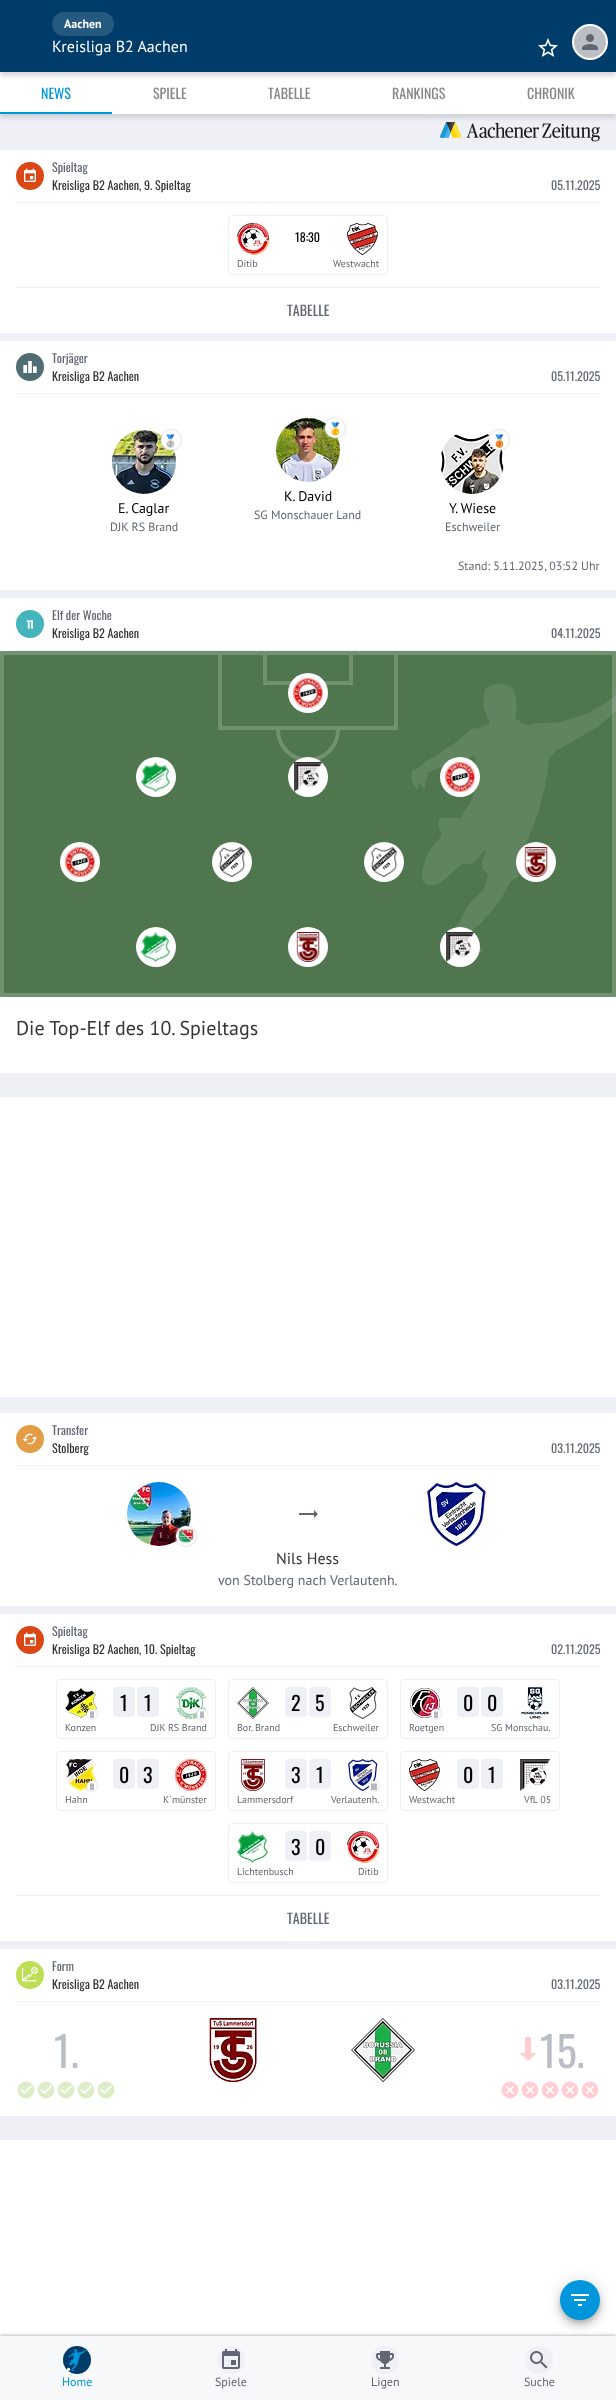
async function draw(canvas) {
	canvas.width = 616;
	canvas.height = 2400;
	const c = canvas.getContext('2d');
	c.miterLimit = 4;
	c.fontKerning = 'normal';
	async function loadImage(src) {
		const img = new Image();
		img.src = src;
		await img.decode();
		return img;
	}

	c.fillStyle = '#eef0f5';
	c.fillRect(0, 0, 616, 2400);
	c.drawImage(await loadImage('img3.png'), 440, 122, 160, 20);
	c.fillStyle = '#bcbec699';
	c.filter = 'blur(2px)';
	c.beginPath();
	c.rect(0, 76, 616, 42);
	c.fill();
	c.filter = 'none';
	c.fillStyle = '#fff';
	c.fillRect(0, 72, 616, 42);
	c.fillStyle = '#bcbec699';
	c.filter = 'blur(2px)';
	c.beginPath();
	c.rect(0, 4, 616, 72);
	c.fill();
	c.filter = 'none';
	c.fillStyle = '#003c69';
	c.fillRect(0, 0, 616, 72);
	c.fillStyle = '#265980';
	c.beginPath();
	c.roundRect(52, 12, 62, 24, 12);
	c.fill();
	c.font = 'bold 12px PT Sans';
	c.fillStyle = '#fff';
	c.fillText('Aachen', 64, 28);
	c.font = '16px PT Sans';
	c.fillText('Kreisliga B2 Aachen', 52, 52);
	c.drawImage(await loadImage('img1.png'), 538, 38, 20, 19);
	c.fillStyle = '#bcbec6';
	c.beginPath();
	c.arc(590, 42, 17, 0, 2 * Math.PI);
	c.fill();
	c.strokeStyle = '#fff';
	c.lineWidth = 2;
	c.stroke();
	c.drawImage(await loadImage('img2.png'), 582, 34, 16, 16);
	c.font = '14px Oswald';
	c.fillStyle = '#0096db';
	c.fillText('NEWS', 41, 99);
	c.fillStyle = '#858686';
	for (const [text, x, y] of [
		['SPIELE', 153, 99],
		['TABELLE', 268, 99],
		['RANKINGS', 392, 99],
		['CHRONIK', 527, 99],
	]) {
		c.fillText(text, x, y);
	}
	c.fillStyle = '#0096db';
	c.fillRect(0, 112, 112, 2);
	c.fillStyle = '#fff';
	c.fillRect(0, 150, 616, 183);
	c.fillStyle = '#db4816';
	c.beginPath();
	c.arc(30, 176, 14, 0, 2 * Math.PI);
	c.fill();
	c.drawImage(await loadImage('img4.png'), 24, 168, 12, 14);
	c.font = '12px Oswald';
	c.fillStyle = '#616672';
	c.fillText('Spieltag', 52, 172);
	c.fillStyle = '#343536';
	c.fillText('Kreisliga B2 Aachen, 9. Spieltag', 52, 190);
	c.fillStyle = '#616672';
	c.fillText('05.11.2025', 551, 190);
	c.fillStyle = '#eef0f5';
	c.fillRect(16, 202, 584, 1);
	c.beginPath();
	c.roundRect(228.5, 215.5, 159, 59, 3.5);
	c.strokeStyle = '#eef0f5';
	c.lineWidth = 1;
	c.stroke();
	c.drawImage(await loadImage('img5.png'), 237, 223, 32, 32);
	c.fillStyle = '#000';
	c.fillText('18:30', 295, 242);
	c.drawImage(await loadImage('img6.png'), 347, 223, 31, 32);
	c.font = '10px PT Sans';
	c.fillStyle = '#616672';
	c.fillText('Ditib', 237, 267);
	c.fillText('Westwacht', 333, 267);
	c.fillStyle = '#eef0f5';
	c.fillRect(16, 287, 584, 1);
	c.font = '14px Oswald';
	c.fillStyle = '#616672';
	c.fillText('TABELLE', 287, 316);
	c.fillStyle = '#fff';
	c.fillRect(0, 341, 616, 249);
	c.fillStyle = '#516d73';
	c.beginPath();
	c.arc(30, 367, 14, 0, 2 * Math.PI);
	c.fill();
	c.drawImage(await loadImage('img7.png'), 23, 361, 14, 12);
	c.font = '12px Oswald';
	c.fillStyle = '#616672';
	c.fillText('Torjäger', 52, 363);
	c.fillStyle = '#343536';
	c.fillText('Kreisliga B2 Aachen', 52, 381);
	c.fillStyle = '#616672';
	c.fillText('05.11.2025', 551, 381);
	c.fillStyle = '#eef0f5';
	c.fillRect(16, 393, 584, 1);
	c.drawImage(await loadImage('img8.png'), 112, 430, 64, 64);
	c.fillStyle = '#bcbec6';
	c.filter = 'blur(1px)';
	c.beginPath();
	c.roundRect(161, 430, 20, 20, 10);
	c.fill();
	c.filter = 'none';
	c.fillStyle = '#fff';
	c.beginPath();
	c.arc(171, 440, 10, 0, 2 * Math.PI);
	c.fill();
	c.font = '12px Noto Color Emoji';
	c.fillStyle = '#616672';
	c.fillText('🥈', 163, 445);
	c.font = '14px PT Sans';
	c.fillStyle = '#000';
	c.fillText('E. Caglar', 118, 513);
	c.font = '12px PT Sans';
	c.fillStyle = '#616672';
	c.fillText('DJK RS Brand', 110, 531);
	c.drawImage(await loadImage('img9.png'), 276, 418, 64, 64);
	c.fillStyle = '#bcbec6';
	c.filter = 'blur(1px)';
	c.beginPath();
	c.roundRect(325, 418, 20, 20, 10);
	c.fill();
	c.filter = 'none';
	c.fillStyle = '#fff';
	c.beginPath();
	c.arc(335, 428, 10, 0, 2 * Math.PI);
	c.fill();
	c.font = '12px Noto Color Emoji';
	c.fillStyle = '#616672';
	c.fillText('🥇', 328, 433);
	c.font = '14px PT Sans';
	c.fillStyle = '#000';
	c.fillText('K. David', 284, 501);
	c.font = '12px PT Sans';
	c.fillStyle = '#616672';
	c.fillText('SG Monschauer Land', 254, 519);
	c.drawImage(await loadImage('img10.png'), 441, 434, 63, 60);
	c.fillStyle = '#bcbec6';
	c.filter = 'blur(1px)';
	c.beginPath();
	c.roundRect(489, 430, 20, 20, 10);
	c.fill();
	c.filter = 'none';
	c.fillStyle = '#fff';
	c.beginPath();
	c.arc(499, 440, 10, 0, 2 * Math.PI);
	c.fill();
	c.font = '12px Noto Color Emoji';
	c.fillStyle = '#616672';
	c.fillText('🥉', 492, 445);
	c.font = '14px PT Sans';
	c.fillStyle = '#000';
	c.fillText('Y. Wiese', 449, 513);
	c.font = '12px PT Sans';
	c.fillStyle = '#616672';
	c.fillText('Eschweiler', 445, 531);
	c.fillText('Stand: 5.11.2025, 03:52 Uhr', 458, 570);
	c.fillStyle = '#fff';
	c.fillRect(0, 598, 616, 475);
	c.fillStyle = '#44b5bc';
	c.beginPath();
	c.arc(30, 624, 14, 0, 2 * Math.PI);
	c.fill();
	c.drawImage(await loadImage('img11.png'), 26, 620, 7, 9);
	c.font = '12px Oswald';
	c.fillStyle = '#616672';
	c.fillText('Elf der Woche', 52, 620);
	c.fillStyle = '#343536';
	c.fillText('Kreisliga B2 Aachen', 52, 638);
	c.fillStyle = '#616672';
	c.fillText('04.11.2025', 551, 638);
	c.fillStyle = '#eef0f5';
	c.fillRect(16, 650, 584, 1);
	c.fillStyle = '#4f764e';
	c.beginPath();
	c.rect(2, 653, 612, 342);
	c.fill();
	c.strokeStyle = '#729171';
	c.lineWidth = 4;
	c.stroke();
	c.beginPath();
	c.moveTo(265, 655);
	c.lineTo(265, 683);
	c.lineTo(351, 683);
	c.lineTo(351, 655);
	c.moveTo(278, 730);
	c.bezierCurveTo(278, 746.5, 291.5, 760, 308, 760);
	c.bezierCurveTo(324.5, 760, 338, 746.5, 338, 730);
	c.stroke();
	c.beginPath();
	c.moveTo(220, 655);
	c.lineTo(220, 728);
	c.lineTo(396, 728);
	c.lineTo(396, 655);
	c.stroke();
	c.fillStyle = '#fff';
	c.beginPath();
	c.arc(308, 693, 20, 0, 2 * Math.PI);
	c.fill();
	c.drawImage(await loadImage('img12.png'), 293, 678, 30, 30);
	c.beginPath();
	c.arc(156, 777, 20, 0, 2 * Math.PI);
	c.fill();
	c.drawImage(await loadImage('img13.png'), 141, 762, 30, 30);
	c.beginPath();
	c.arc(308, 777, 20, 0, 2 * Math.PI);
	c.fill();
	c.drawImage(await loadImage('img14.png'), 294, 762, 29, 30);
	c.drawImage(await loadImage('img20.png'), 411, 684, 205, 269);
	c.beginPath();
	c.arc(460, 777, 20, 0, 2 * Math.PI);
	c.fill();
	c.drawImage(await loadImage('img15.png'), 445, 762, 30, 30);
	c.beginPath();
	c.arc(80, 862, 20, 0, 2 * Math.PI);
	c.fill();
	c.drawImage(await loadImage('img12.png'), 65, 847, 30, 30);
	c.beginPath();
	c.arc(232, 862, 20, 0, 2 * Math.PI);
	c.fill();
	c.drawImage(await loadImage('img16.png'), 218, 847, 28, 30);
	c.beginPath();
	c.arc(384, 862, 20, 0, 2 * Math.PI);
	c.fill();
	c.drawImage(await loadImage('img17.png'), 370, 847, 28, 30);
	c.beginPath();
	c.arc(536, 862, 20, 0, 2 * Math.PI);
	c.fill();
	c.drawImage(await loadImage('img18.png'), 524, 847, 24, 30);
	c.beginPath();
	c.arc(156, 947, 20, 0, 2 * Math.PI);
	c.fill();
	c.drawImage(await loadImage('img13.png'), 141, 932, 30, 30);
	c.beginPath();
	c.arc(308, 947, 20, 0, 2 * Math.PI);
	c.fill();
	c.drawImage(await loadImage('img18.png'), 296, 932, 24, 30);
	c.beginPath();
	c.arc(460, 947, 20, 0, 2 * Math.PI);
	c.fill();
	c.drawImage(await loadImage('img19.png'), 446, 932, 29, 30);
	c.font = '20px PT Sans';
	c.fillStyle = '#343536';
	c.fillText('Die Top-Elf des 10. Spieltags', 16, 1035);
	c.fillStyle = '#fff';
	c.fillRect(0, 1097, 616, 300);
	c.fillRect(0, 1413, 616, 193);
	c.fillStyle = '#e49c45';
	c.beginPath();
	c.arc(30, 1439, 14, 0, 2 * Math.PI);
	c.fill();
	c.drawImage(await loadImage('img21.png'), 22, 1433, 16, 12);
	c.font = '12px Oswald';
	c.fillStyle = '#616672';
	c.fillText('Transfer', 52, 1435);
	c.fillStyle = '#343536';
	c.fillText('Stolberg', 52, 1453);
	c.fillStyle = '#616672';
	c.fillText('03.11.2025', 551, 1453);
	c.fillStyle = '#eef0f5';
	c.fillRect(16, 1465, 584, 1);
	c.drawImage(await loadImage('img22.png'), 127, 1482, 64, 64);
	c.fillStyle = '#bcbec6';
	c.filter = 'blur(1px)';
	c.beginPath();
	c.roundRect(176, 1526, 20, 20, 10);
	c.fill();
	c.filter = 'none';
	c.fillStyle = '#fff';
	c.beginPath();
	c.arc(186, 1536, 10, 0, 2 * Math.PI);
	c.fill();
	c.drawImage(await loadImage('img23.png'), 178, 1529, 16, 14);
	c.drawImage(await loadImage('img24.png'), 299, 1510, 19, 8);
	c.drawImage(await loadImage('img25.png'), 427, 1482, 59, 64);
	c.font = '16px PT Sans';
	c.fillStyle = '#343536';
	c.fillText('Nils Hess', 276, 1564);
	c.font = '14px PT Sans';
	c.fillStyle = '#616672';
	c.fillText('von Stolberg nach', 218, 1585);
	c.fillText('Verlautenh.', 330, 1585);
	c.fillStyle = '#fff';
	c.fillRect(0, 1614, 616, 327);
	c.fillStyle = '#db4816';
	c.beginPath();
	c.arc(30, 1640, 14, 0, 2 * Math.PI);
	c.fill();
	c.drawImage(await loadImage('img4.png'), 24, 1632, 12, 14);
	c.font = '12px Oswald';
	c.fillStyle = '#616672';
	c.fillText('Spieltag', 52, 1636);
	c.fillStyle = '#343536';
	c.fillText('Kreisliga B2 Aachen, 10. Spieltag', 52, 1654);
	c.fillStyle = '#616672';
	c.fillText('02.11.2025', 551, 1654);
	c.fillStyle = '#eef0f5';
	c.fillRect(16, 1666, 584, 1);
	c.beginPath();
	c.roundRect(56.5, 1679.5, 159, 59, 3.5);
	c.strokeStyle = '#eef0f5';
	c.lineWidth = 1;
	c.stroke();
	c.beginPath();
	c.roundRect(113, 1687, 22, 30, 4);
	c.fill();
	c.font = '20px Oswald';
	c.fillStyle = '#000';
	c.fillText('1', 120, 1711);
	c.fillStyle = '#eef0f5';
	c.beginPath();
	c.roundRect(137, 1687, 22, 30, 4);
	c.fill();
	c.fillStyle = '#000';
	c.fillText('1', 144, 1711);
	c.drawImage(await loadImage('img26.png'), 65, 1688, 32, 31);
	c.fillStyle = '#bcbec6';
	c.filter = 'blur(1px)';
	c.beginPath();
	c.roundRect(87, 1709, 10, 10, 5);
	c.fill();
	c.filter = 'none';
	c.fillStyle = '#fff';
	c.beginPath();
	c.arc(92, 1714, 5, 0, 2 * Math.PI);
	c.fill();
	c.font = '8px Oswald';
	c.fillStyle = '#616672';
	c.fillText('II', 90, 1718);
	c.drawImage(await loadImage('img27.png'), 175, 1687, 32, 32);
	c.fillStyle = '#bcbec6';
	c.filter = 'blur(1px)';
	c.beginPath();
	c.roundRect(197, 1709, 10, 10, 5);
	c.fill();
	c.filter = 'none';
	c.fillStyle = '#fff';
	c.beginPath();
	c.arc(202, 1714, 5, 0, 2 * Math.PI);
	c.fill();
	c.fillStyle = '#616672';
	c.fillText('II', 200, 1718);
	c.font = '10px PT Sans';
	c.fillText('Konzen', 65, 1731);
	c.fillText('DJK RS Brand', 150, 1731);
	c.beginPath();
	c.roundRect(228.5, 1679.5, 159, 59, 3.5);
	c.stroke();
	c.drawImage(await loadImage('img28.png'), 237, 1687, 32, 32);
	c.fillStyle = '#eef0f5';
	c.beginPath();
	c.roundRect(285, 1687, 22, 30, 4);
	c.fill();
	c.font = '20px Oswald';
	c.fillStyle = '#000';
	c.fillText('2', 291, 1711);
	c.fillStyle = '#eef0f5';
	c.beginPath();
	c.roundRect(309, 1687, 22, 30, 4);
	c.fill();
	c.fillStyle = '#000';
	c.fillText('5', 315, 1711);
	c.drawImage(await loadImage('img29.png'), 349, 1687, 28, 32);
	c.font = '10px PT Sans';
	c.fillStyle = '#616672';
	c.fillText('Bor. Brand', 237, 1731);
	c.fillText('Eschweiler', 333, 1731);
	c.beginPath();
	c.roundRect(400.5, 1679.5, 159, 59, 3.5);
	c.stroke();
	c.fillStyle = '#eef0f5';
	c.beginPath();
	c.roundRect(457, 1687, 22, 30, 4);
	c.fill();
	c.font = '20px Oswald';
	c.fillStyle = '#000';
	c.fillText('0', 463, 1711);
	c.fillStyle = '#eef0f5';
	c.beginPath();
	c.roundRect(481, 1687, 22, 30, 4);
	c.fill();
	c.fillStyle = '#000';
	c.fillText('0', 487, 1711);
	c.drawImage(await loadImage('img30.png'), 521, 1687, 28, 32);
	c.drawImage(await loadImage('img31.png'), 409, 1687, 31, 31);
	c.fillStyle = '#bcbec6';
	c.filter = 'blur(1px)';
	c.beginPath();
	c.roundRect(431, 1709, 10, 10, 5);
	c.fill();
	c.filter = 'none';
	c.fillStyle = '#fff';
	c.beginPath();
	c.arc(436, 1714, 5, 0, 2 * Math.PI);
	c.fill();
	c.font = '8px Oswald';
	c.fillStyle = '#616672';
	c.fillText('II', 434, 1718);
	c.font = '10px PT Sans';
	c.fillText('Roetgen', 409, 1731);
	c.fillText('SG Monschau.', 491, 1731);
	c.beginPath();
	c.roundRect(56.5, 1751.5, 159, 59, 3.5);
	c.stroke();
	c.fillStyle = '#eef0f5';
	c.beginPath();
	c.roundRect(113, 1759, 22, 30, 4);
	c.fill();
	c.font = '20px Oswald';
	c.fillStyle = '#000';
	c.fillText('0', 119, 1783);
	c.fillStyle = '#eef0f5';
	c.beginPath();
	c.roundRect(137, 1759, 22, 30, 4);
	c.fill();
	c.fillStyle = '#000';
	c.fillText('3', 143, 1783);
	c.drawImage(await loadImage('img32.png'), 175, 1759, 32, 32);
	c.drawImage(await loadImage('img33.png'), 66, 1759, 30, 32);
	c.fillStyle = '#bcbec6';
	c.filter = 'blur(1px)';
	c.beginPath();
	c.roundRect(87, 1781, 10, 10, 5);
	c.fill();
	c.filter = 'none';
	c.fillStyle = '#fff';
	c.beginPath();
	c.arc(92, 1786, 5, 0, 2 * Math.PI);
	c.fill();
	c.font = '8px Oswald';
	c.fillStyle = '#616672';
	c.fillText('II', 90, 1790);
	c.font = '10px PT Sans';
	c.fillText('Hahn', 65, 1803);
	c.fillText('K`münster', 163, 1803);
	c.beginPath();
	c.roundRect(228.5, 1751.5, 159, 59, 3.5);
	c.stroke();
	c.drawImage(await loadImage('img34.png'), 241, 1759, 24, 32);
	c.fillStyle = '#eef0f5';
	c.beginPath();
	c.roundRect(285, 1759, 22, 30, 4);
	c.fill();
	c.font = '20px Oswald';
	c.fillStyle = '#000';
	c.fillText('3', 291, 1783);
	c.fillStyle = '#eef0f5';
	c.beginPath();
	c.roundRect(309, 1759, 22, 30, 4);
	c.fill();
	c.fillStyle = '#000';
	c.fillText('1', 316, 1783);
	c.drawImage(await loadImage('img35.png'), 348, 1759, 30, 32);
	c.fillStyle = '#bcbec6';
	c.filter = 'blur(1px)';
	c.beginPath();
	c.roundRect(369, 1781, 10, 10, 5);
	c.fill();
	c.filter = 'none';
	c.fillStyle = '#fff';
	c.beginPath();
	c.arc(374, 1786, 5, 0, 2 * Math.PI);
	c.fill();
	c.font = '8px Oswald';
	c.fillStyle = '#616672';
	c.fillText('III', 371, 1790);
	c.font = '10px PT Sans';
	c.fillText('Lammersdorf', 237, 1803);
	c.fillText('Verlautenh.', 331, 1803);
	c.beginPath();
	c.roundRect(400.5, 1751.5, 159, 59, 3.5);
	c.stroke();
	c.drawImage(await loadImage('img6.png'), 409, 1759, 31, 32);
	c.fillStyle = '#eef0f5';
	c.beginPath();
	c.roundRect(457, 1759, 22, 30, 4);
	c.fill();
	c.font = '20px Oswald';
	c.fillStyle = '#000';
	c.fillText('0', 463, 1783);
	c.fillStyle = '#eef0f5';
	c.beginPath();
	c.roundRect(481, 1759, 22, 30, 4);
	c.fill();
	c.fillStyle = '#000';
	c.fillText('1', 488, 1783);
	c.drawImage(await loadImage('img36.png'), 520, 1759, 30, 32);
	c.font = '10px PT Sans';
	c.fillStyle = '#616672';
	c.fillText('Westwacht', 409, 1803);
	c.fillText('VfL 05', 524, 1803);
	c.beginPath();
	c.roundRect(228.5, 1823.5, 159, 59, 3.5);
	c.stroke();
	c.drawImage(await loadImage('img37.png'), 237, 1831, 31, 32);
	c.fillStyle = '#eef0f5';
	c.beginPath();
	c.roundRect(285, 1831, 22, 30, 4);
	c.fill();
	c.font = '20px Oswald';
	c.fillStyle = '#000';
	c.fillText('3', 291, 1855);
	c.fillStyle = '#eef0f5';
	c.beginPath();
	c.roundRect(309, 1831, 22, 30, 4);
	c.fill();
	c.fillStyle = '#000';
	c.fillText('0', 315, 1855);
	c.drawImage(await loadImage('img5.png'), 347, 1831, 32, 32);
	c.font = '10px PT Sans';
	c.fillStyle = '#616672';
	c.fillText('Lichtenbusch', 237, 1875);
	c.fillText('Ditib', 358, 1875);
	c.fillStyle = '#eef0f5';
	c.fillRect(16, 1895, 584, 1);
	c.font = '14px Oswald';
	c.fillStyle = '#616672';
	c.fillText('TABELLE', 287, 1924);
	c.fillStyle = '#fff';
	c.fillRect(0, 1949, 616, 167);
	c.fillStyle = '#bede55';
	c.beginPath();
	c.arc(30, 1975, 14, 0, 2 * Math.PI);
	c.fill();
	c.drawImage(await loadImage('img38.png'), 22, 1967, 16, 15);
	c.font = '12px Oswald';
	c.fillStyle = '#616672';
	c.fillText('Form', 52, 1971);
	c.fillStyle = '#343536';
	c.fillText('Kreisliga B2 Aachen', 52, 1989);
	c.fillStyle = '#616672';
	c.fillText('03.11.2025', 551, 1989);
	c.fillStyle = '#eef0f5';
	c.fillRect(16, 2001, 584, 1);
	c.font = '42px Oswald';
	c.fillStyle = '#bcbec6';
	c.fillText('1.', 54, 2068);
	c.drawImage(await loadImage('img39.png'), 17, 2081, 18, 18);
	c.drawImage(await loadImage('img39.png'), 37, 2081, 18, 18);
	c.drawImage(await loadImage('img39.png'), 57, 2081, 18, 18);
	c.drawImage(await loadImage('img39.png'), 77, 2081, 18, 18);
	c.drawImage(await loadImage('img39.png'), 97, 2081, 18, 18);
	c.drawImage(await loadImage('img40.png'), 209, 2018, 49, 64);
	c.drawImage(await loadImage('img41.png'), 351, 2018, 64, 64);
	c.fillStyle = '#ffcdd2';
	c.beginPath();
	c.moveTo(525, 2053);
	c.lineTo(520, 2053);
	c.lineTo(528, 2061);
	c.lineTo(536.5, 2053);
	c.lineTo(531, 2053);
	c.lineTo(531, 2037);
	c.lineTo(525, 2037);
	c.closePath();
	c.fill();
	c.fillStyle = '#bcbec6';
	c.fillText('15.', 540, 2068);
	c.drawImage(await loadImage('img42.png'), 501, 2081, 18, 18);
	c.drawImage(await loadImage('img42.png'), 521, 2081, 18, 18);
	c.drawImage(await loadImage('img42.png'), 541, 2081, 18, 18);
	c.drawImage(await loadImage('img42.png'), 561, 2081, 18, 18);
	c.drawImage(await loadImage('img42.png'), 581, 2081, 18, 18);
	c.fillStyle = '#fff';
	c.fillRect(0, 2140, 616, 196);
	c.fillStyle = '#0000001f';
	c.filter = 'blur(9px)';
	c.beginPath();
	c.roundRect(560, 2281, 40, 40, 20);
	c.fill();
	c.filter = 'none';
	c.fillStyle = '#00000024';
	c.filter = 'blur(5px)';
	c.beginPath();
	c.roundRect(560, 2286, 40, 40, 20);
	c.fill();
	c.filter = 'none';
	c.fillStyle = '#00000033';
	c.filter = 'blur(2.5px)';
	c.beginPath();
	c.roundRect(561, 2284, 38, 38, 19);
	c.fill();
	c.filter = 'none';
	c.fillStyle = '#0096db';
	c.beginPath();
	c.arc(580, 2300, 20, 0, 2 * Math.PI);
	c.fill();
	c.drawImage(await loadImage('img43.png'), 571, 2294, 18, 12);
	c.fillStyle = '#bcbec6';
	c.filter = 'blur(1.5px)';
	c.beginPath();
	c.rect(0, 2335, 616, 64);
	c.fill();
	c.filter = 'none';
	c.fillStyle = '#f7f8fa';
	c.fillRect(0, 2336, 616, 64);
	c.fillStyle = '#003c69';
	c.beginPath();
	c.arc(77, 2360, 14, 0, 2 * Math.PI);
	c.fill();
	c.drawImage(await loadImage('img44.png'), 67, 2349, 21, 22);
	c.font = '12px PT Sans';
	c.fillStyle = '#0096db';
	c.fillText('Home', 62, 2386);
	c.fillStyle = '#eef0f5';
	c.beginPath();
	c.arc(231, 2360, 14, 0, 2 * Math.PI);
	c.fill();
	c.drawImage(await loadImage('img45.png'), 222, 2349, 18, 20);
	c.fillStyle = '#616672';
	c.fillText('Spiele', 215, 2386);
	c.fillStyle = '#eef0f5';
	c.beginPath();
	c.arc(385, 2360, 14, 0, 2 * Math.PI);
	c.fill();
	c.drawImage(await loadImage('img46.png'), 376, 2351, 18, 18);
	c.fillStyle = '#616672';
	c.fillText('Ligen', 371, 2386);
	c.fillStyle = '#eef0f5';
	c.beginPath();
	c.arc(539, 2360, 14, 0, 2 * Math.PI);
	c.fill();
	c.drawImage(await loadImage('img47.png'), 530, 2351, 18, 18);
	c.fillStyle = '#616672';
	c.fillText('Suche', 524, 2386);
}

draw(document.querySelector('canvas'));
